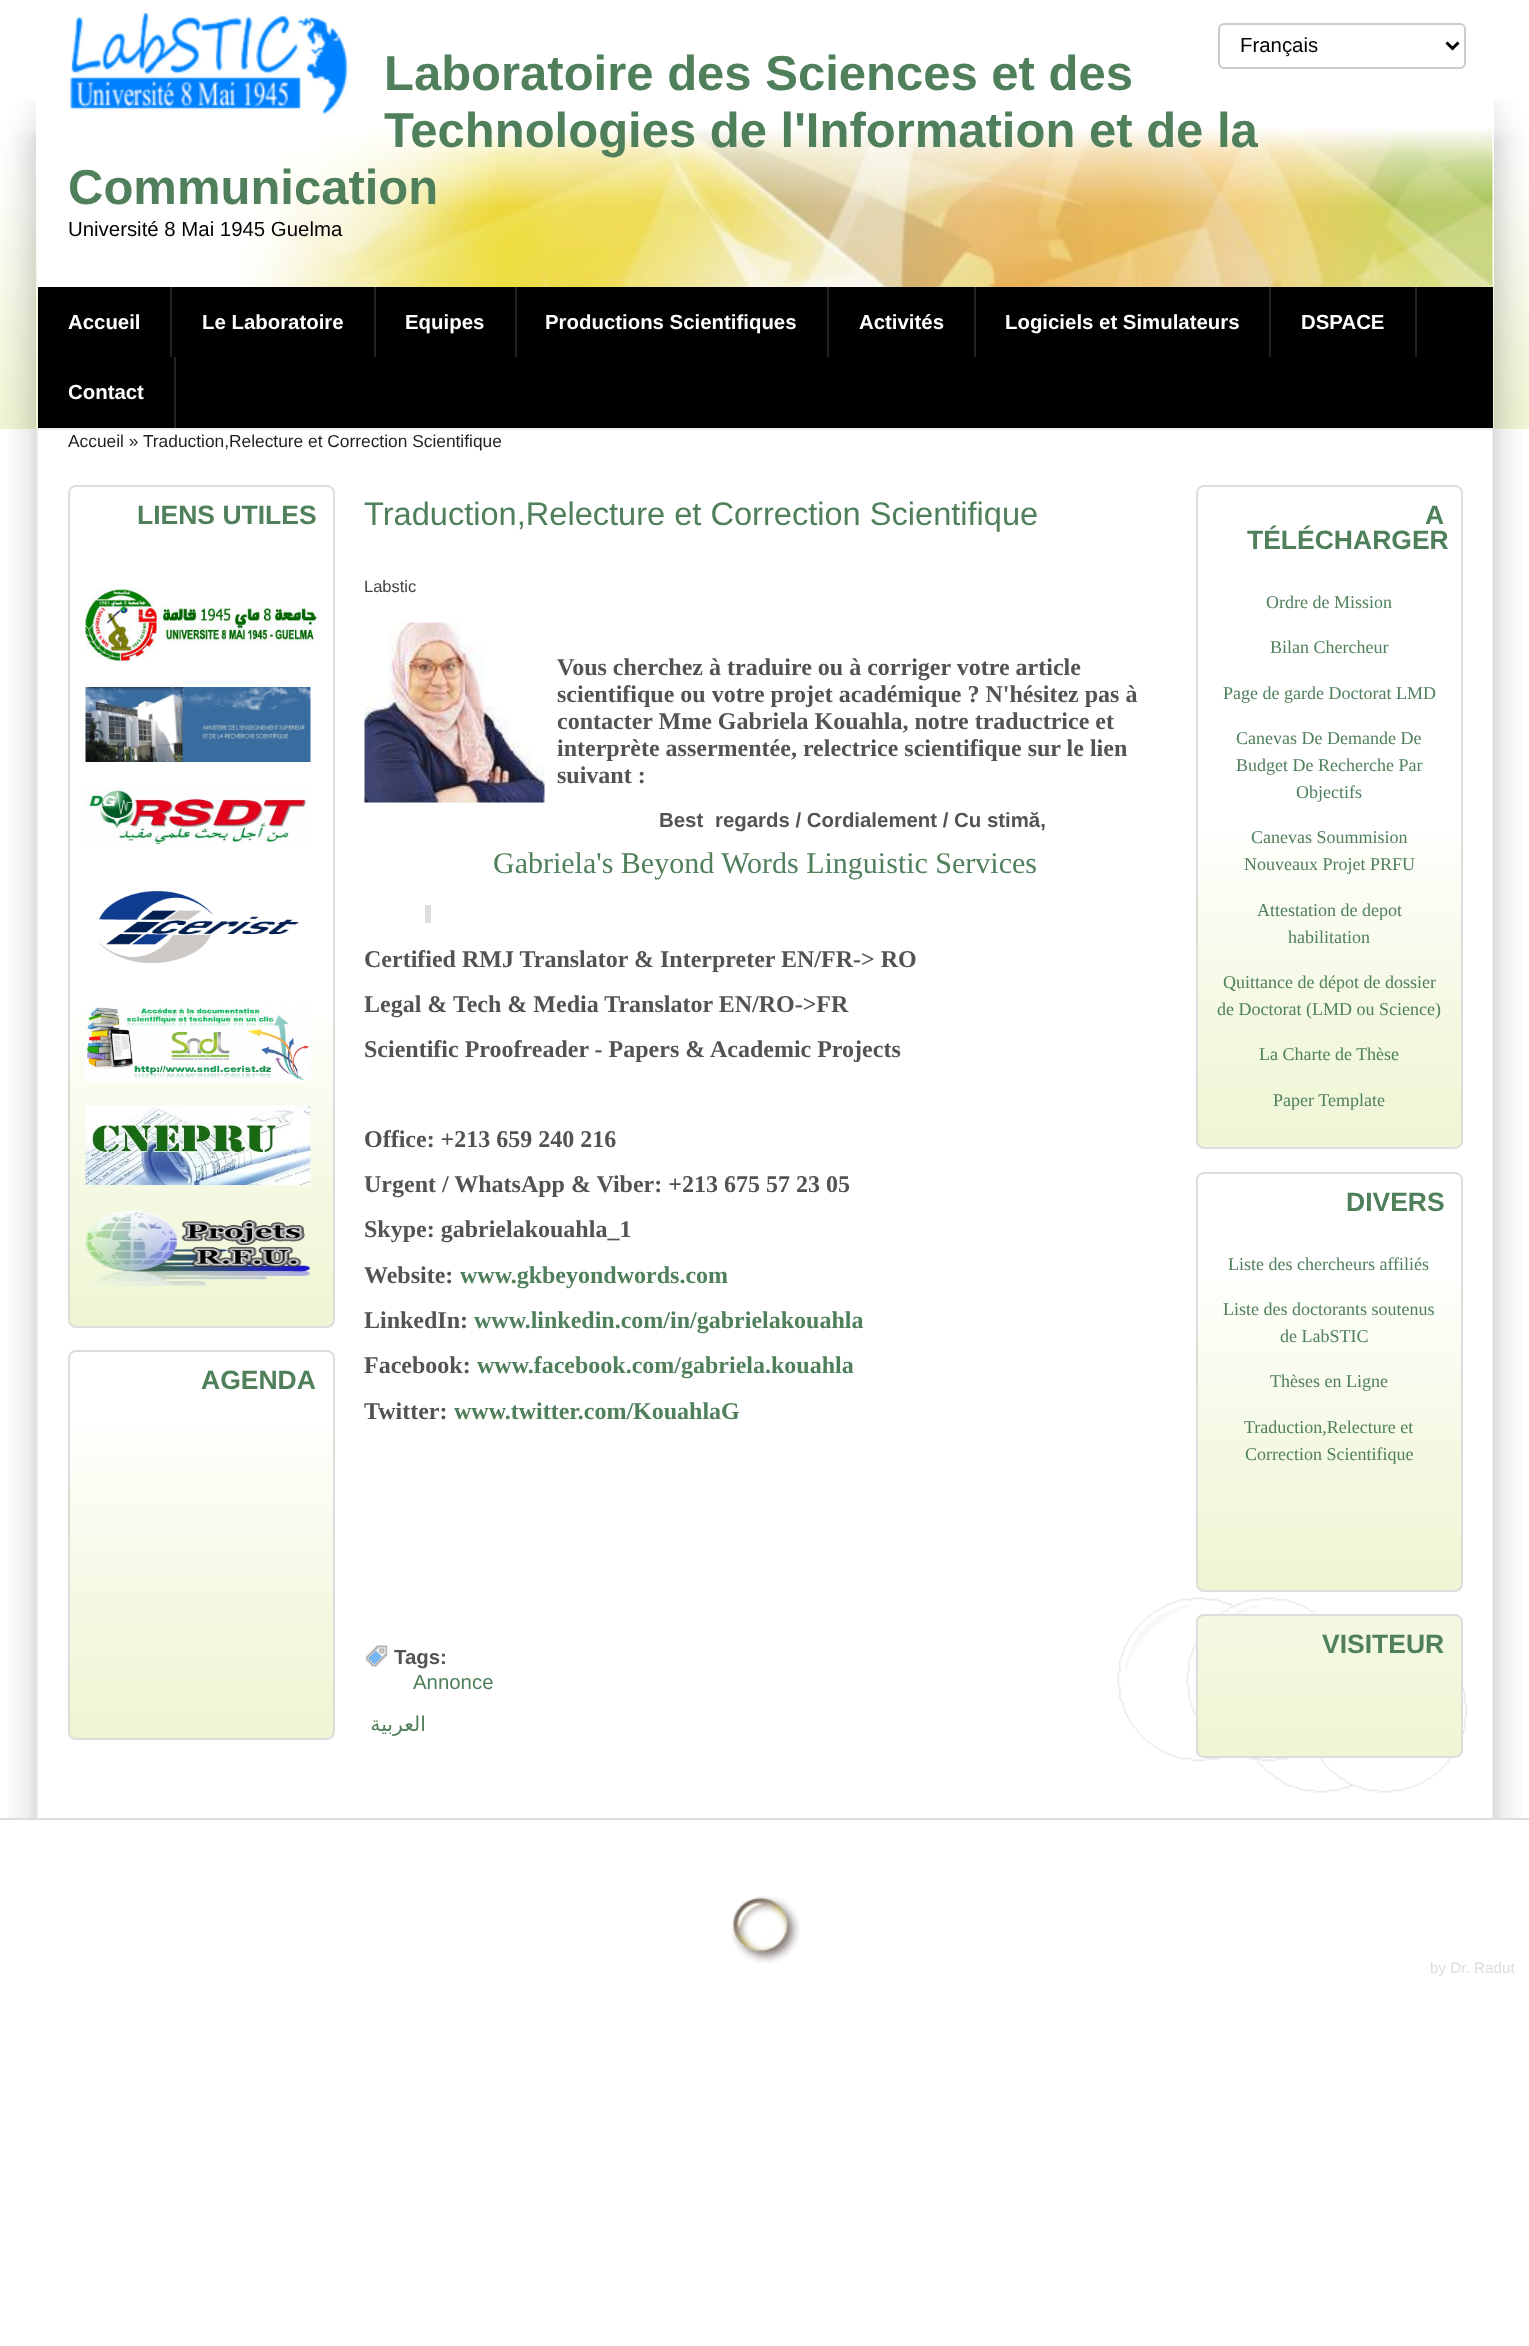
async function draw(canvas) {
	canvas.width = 1529;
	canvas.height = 2346;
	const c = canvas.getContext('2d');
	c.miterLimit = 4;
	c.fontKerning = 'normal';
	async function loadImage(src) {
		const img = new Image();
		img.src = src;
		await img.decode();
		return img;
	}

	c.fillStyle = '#fff';
	c.fillRect(0, 0, 1529, 2346);
	c.drawImage(await loadImage('img1.png'), 36, 182, 1458, 247);
	c.drawImage(await loadImage('img2.png'), 0, 99, 36, 330);
	c.drawImage(await loadImage('img3.png'), 1494, 99, 35, 330);
	c.fillRect(38, 182, 1455, 105);
	c.drawImage(await loadImage('img4.png'), 233, 127, 1260, 160);
	c.fillStyle = '#eee';
	c.fillRect(38, 428, 1455, 2);
	c.drawImage(await loadImage('img5.png'), 70, 12, 280, 104);
	c.beginPath();
	c.roundRect(1219, 24, 246, 44, 5);
	c.strokeStyle = '#ccc';
	c.lineWidth = 2;
	c.stroke();
	c.beginPath();
	c.moveTo(1446.5, 42.5);
	c.lineTo(1452.5, 48.5);
	c.lineTo(1458.5, 42.5);
	c.strokeStyle = '#000';
	c.lineWidth = 3;
	c.stroke();
	c.font = '20.4px Liberation Sans';
	c.fillStyle = '#000';
	c.fillText('Français', 1240, 52);
	c.font = 'bold 49px Liberation Sans';
	c.fillStyle = '#4f7f5b';
	for (const [text, x, y] of [
		['Laboratoire des Sciences et des', 384, 90],
		['Technologies de l\'Information et de la', 384, 147],
		['Communication', 68, 204],
	]) {
		c.fillText(text, x, y);
	}
	c.font = '20.4px Liberation Sans';
	c.fillStyle = '#000';
	c.fillText('Université 8 Mai 1945 Guelma', 68, 236);
	c.fillRect(38, 287, 1455, 141);
	c.fillStyle = '#222';
	c.fillRect(170, 287, 2, 70);
	c.font = 'bold 20.4px Liberation Sans';
	c.fillStyle = '#fff';
	c.fillText('Accueil', 68, 329);
	c.fillStyle = '#222';
	c.fillRect(374, 287, 2, 70);
	c.fillStyle = '#fff';
	c.fillText('Le Laboratoire', 202, 329);
	c.fillStyle = '#222';
	c.fillRect(515, 287, 2, 70);
	c.fillStyle = '#fff';
	c.fillText('Equipes', 405, 329);
	c.fillStyle = '#222';
	c.fillRect(827, 287, 2, 70);
	c.fillStyle = '#fff';
	c.fillText('Productions Scientifiques', 545, 329);
	c.fillStyle = '#222';
	c.fillRect(974, 287, 2, 70);
	c.fillStyle = '#fff';
	c.fillText('Activités', 859, 329);
	c.fillStyle = '#222';
	c.fillRect(1269, 287, 2, 70);
	c.fillStyle = '#fff';
	c.fillText('Logiciels et Simulateurs', 1005, 329);
	c.fillStyle = '#222';
	c.fillRect(1415, 287, 2, 70);
	c.fillStyle = '#fff';
	c.fillText('DSPACE', 1301, 329);
	c.fillStyle = '#222';
	c.fillRect(174, 357, 2, 71);
	c.fillStyle = '#fff';
	c.fillText('Contact', 68, 399);
	c.fillStyle = '#ddd';
	c.fillRect(0, 1818, 1529, 2);
	c.drawImage(await loadImage('img6.png'), 8, 429, 30, 1389);
	c.drawImage(await loadImage('img7.png'), 1492, 429, 30, 1389);
	c.font = '17.35px Liberation Sans';
	c.fillStyle = '#1e201b';
	c.fillText('Accueil » Traduction,Relecture et Correction Scientifique', 68, 447);
	c.drawImage(await loadImage('img8.png'), 1117, 1597, 350, 196);
	c.drawImage(await loadImage('img9.png'), 67, 1017, 268, 309);
	c.beginPath();
	c.roundRect(69, 486, 265, 841, 7);
	c.strokeStyle = '#ddd';
	c.lineWidth = 2;
	c.stroke();
	c.font = 'bold 26.5px Liberation Sans';
	c.fillStyle = '#4f7f5b';
	c.fillText('LIENS UTILES', 137, 524);
	c.drawImage(await loadImage('img10.png'), 85, 588, 234, 75);
	c.drawImage(await loadImage('img11.png'), 85, 687, 226, 75);
	c.drawImage(await loadImage('img12.png'), 85, 787, 222, 58);
	c.drawImage(await loadImage('img13.png'), 97, 891, 202, 72);
	c.drawImage(await loadImage('img14.png'), 85, 1006, 226, 76);
	c.drawImage(await loadImage('img15.png'), 85, 1105, 226, 80);
	c.drawImage(await loadImage('img16.png'), 85, 1210, 226, 76);
	c.drawImage(await loadImage('img17.png'), 67, 1430, 268, 309);
	c.beginPath();
	c.roundRect(69, 1351, 265, 388, 7);
	c.stroke();
	c.fillText('AGENDA', 201, 1389);
	c.font = '32.6px Liberation Sans';
	c.fillText('Traduction,Relecture et Correction Scientifique', 364, 525);
	c.font = '16.5px Liberation Sans';
	c.fillStyle = '#3f3f3f';
	c.fillText('Labstic', 364, 592);
	c.drawImage(await loadImage('img18.png'), 364, 622, 181, 181);
	c.font = 'bold 24px Liberation Serif';
	c.fillStyle = '#535353';
	for (const [text, x, y] of [
		['Vous cherchez à traduire ou à corriger votre article', 557, 675],
		['scientifique ou votre projet académique ? N\'hésitez pas à', 557, 702],
		['contacter Mme Gabriela Kouahla, notre traductrice et', 557, 729],
		['interprète assermentée, relectrice scientifique sur le lien', 557, 756],
		['suivant :', 557, 783],
	]) {
		c.fillText(text, x, y);
	}
	c.font = 'bold 20.4px Liberation Sans';
	c.fillText('Best', 659, 827);
	c.fillText('regards / Cordialement / Cu stimă,', 715, 827);
	c.font = '30px Liberation Serif';
	c.fillStyle = '#4f7f5b';
	c.fillText('Gabriela\'s Beyond Words Linguistic Services', 493, 873);
	c.fillStyle = '#ddd';
	c.fillRect(425, 905, 6, 18);
	c.font = 'bold 24px Liberation Serif';
	c.fillStyle = '#535353';
	for (const [text, x, y] of [
		['Certified RMJ Translator & Interpreter EN/FR-> RO', 364, 967],
		['Legal & Tech & Media Translator EN/RO->FR', 364, 1012],
		['Scientific Proofreader - Papers & Academic Projects', 364, 1057],
		['Office: +213 659 240 216', 364, 1147],
		['Urgent / WhatsApp & Viber: +213 675 57 23 05', 364, 1192],
		['Skype: gabrielakouahla_1', 364, 1237],
		['Website:', 364, 1283],
	]) {
		c.fillText(text, x, y);
	}
	c.fillStyle = '#4f7f5b';
	c.fillText('www.gkbeyondwords.com', 460, 1283);
	c.fillStyle = '#535353';
	c.fillText('LinkedIn:', 364, 1328);
	c.fillStyle = '#4f7f5b';
	c.fillText('www.linkedin.com/in/gabrielakouahla', 474, 1328);
	c.fillStyle = '#535353';
	c.fillText('Facebook:', 364, 1373);
	c.fillStyle = '#4f7f5b';
	c.fillText('www.facebook.com/gabriela.kouahla', 477, 1373);
	c.fillStyle = '#535353';
	c.fillText('Twitter:', 364, 1419);
	c.fillStyle = '#4f7f5b';
	c.fillText('www.twitter.com/KouahlaG', 454, 1419);
	c.drawImage(await loadImage('img19.png'), 365, 1645, 23, 22);
	c.font = 'bold 20.4px Liberation Sans';
	c.fillStyle = '#535353';
	c.fillText('Tags:', 394, 1664);
	c.font = '20.4px Liberation Sans';
	c.fillStyle = '#4f7f5b';
	c.fillText('Annonce', 413, 1689);
	c.direction = 'rtl';
	c.font = '20.4px DejaVu Sans';
	c.fillText('العربية', 426, 1731);
	c.drawImage(await loadImage('img20.png'), 1195, 839, 268, 309);
	c.beginPath();
	c.roundRect(1197, 486, 265, 662, 7);
	c.stroke();
	c.direction = 'ltr';
	c.font = 'bold 26.5px Liberation Sans';
	c.fillText('A', 1425, 524);
	c.fillText('TÉLÉCHARGER', 1247, 549);
	c.font = '18px Liberation Serif';
	for (const [text, x, y] of [
		['Ordre de Mission', 1266, 608],
		['Bilan Chercheur', 1270, 653],
		['Page de garde Doctorat LMD', 1223, 699],
		['Canevas De Demande De', 1236, 744],
		['Budget De Recherche Par', 1236, 771],
		['Objectifs', 1296, 798],
		['Canevas Soummision', 1251, 843],
		['Nouveaux Projet PRFU', 1244, 870],
		['Attestation de depot', 1257, 916],
		['habilitation', 1288, 943],
		['Quittance de dépot de dossier', 1223, 988],
		['de Doctorat (LMD ou Science)', 1217, 1015],
		['La Charte de Thèse', 1259, 1060],
		['Paper Template', 1273, 1106],
	]) {
		c.fillText(text, x, y);
	}
	c.drawImage(await loadImage('img21.png'), 1195, 1281, 268, 309);
	c.beginPath();
	c.roundRect(1197, 1173, 265, 418, 7);
	c.stroke();
	c.font = 'bold 26.5px Liberation Sans';
	c.fillText('DIVERS', 1346, 1211);
	c.font = '18px Liberation Serif';
	for (const [text, x, y] of [
		['Liste des chercheurs affiliés', 1228, 1270],
		['Liste des doctorants soutenus', 1223, 1315],
		['de LabSTIC', 1280, 1342],
		['Thèses en Ligne', 1270, 1387],
		['Traduction,Relecture et', 1244, 1433],
		['Correction Scientifique', 1245, 1460],
	]) {
		c.fillText(text, x, y);
	}
	c.drawImage(await loadImage('img22.png'), 1195, 1614, 268, 143);
	c.beginPath();
	c.roundRect(1197, 1615, 265, 142, 7);
	c.stroke();
	c.font = 'bold 26.5px Liberation Sans';
	c.fillText('VISITEUR', 1322, 1653);
	c.font = '15.25px Liberation Sans';
	c.fillStyle = '#ddd';
	c.fillText('by Dr. Radut', 1430, 1973);
	c.drawImage(await loadImage('img23.png'), 732, 1896, 68, 67);
}

draw(document.querySelector('canvas'));
